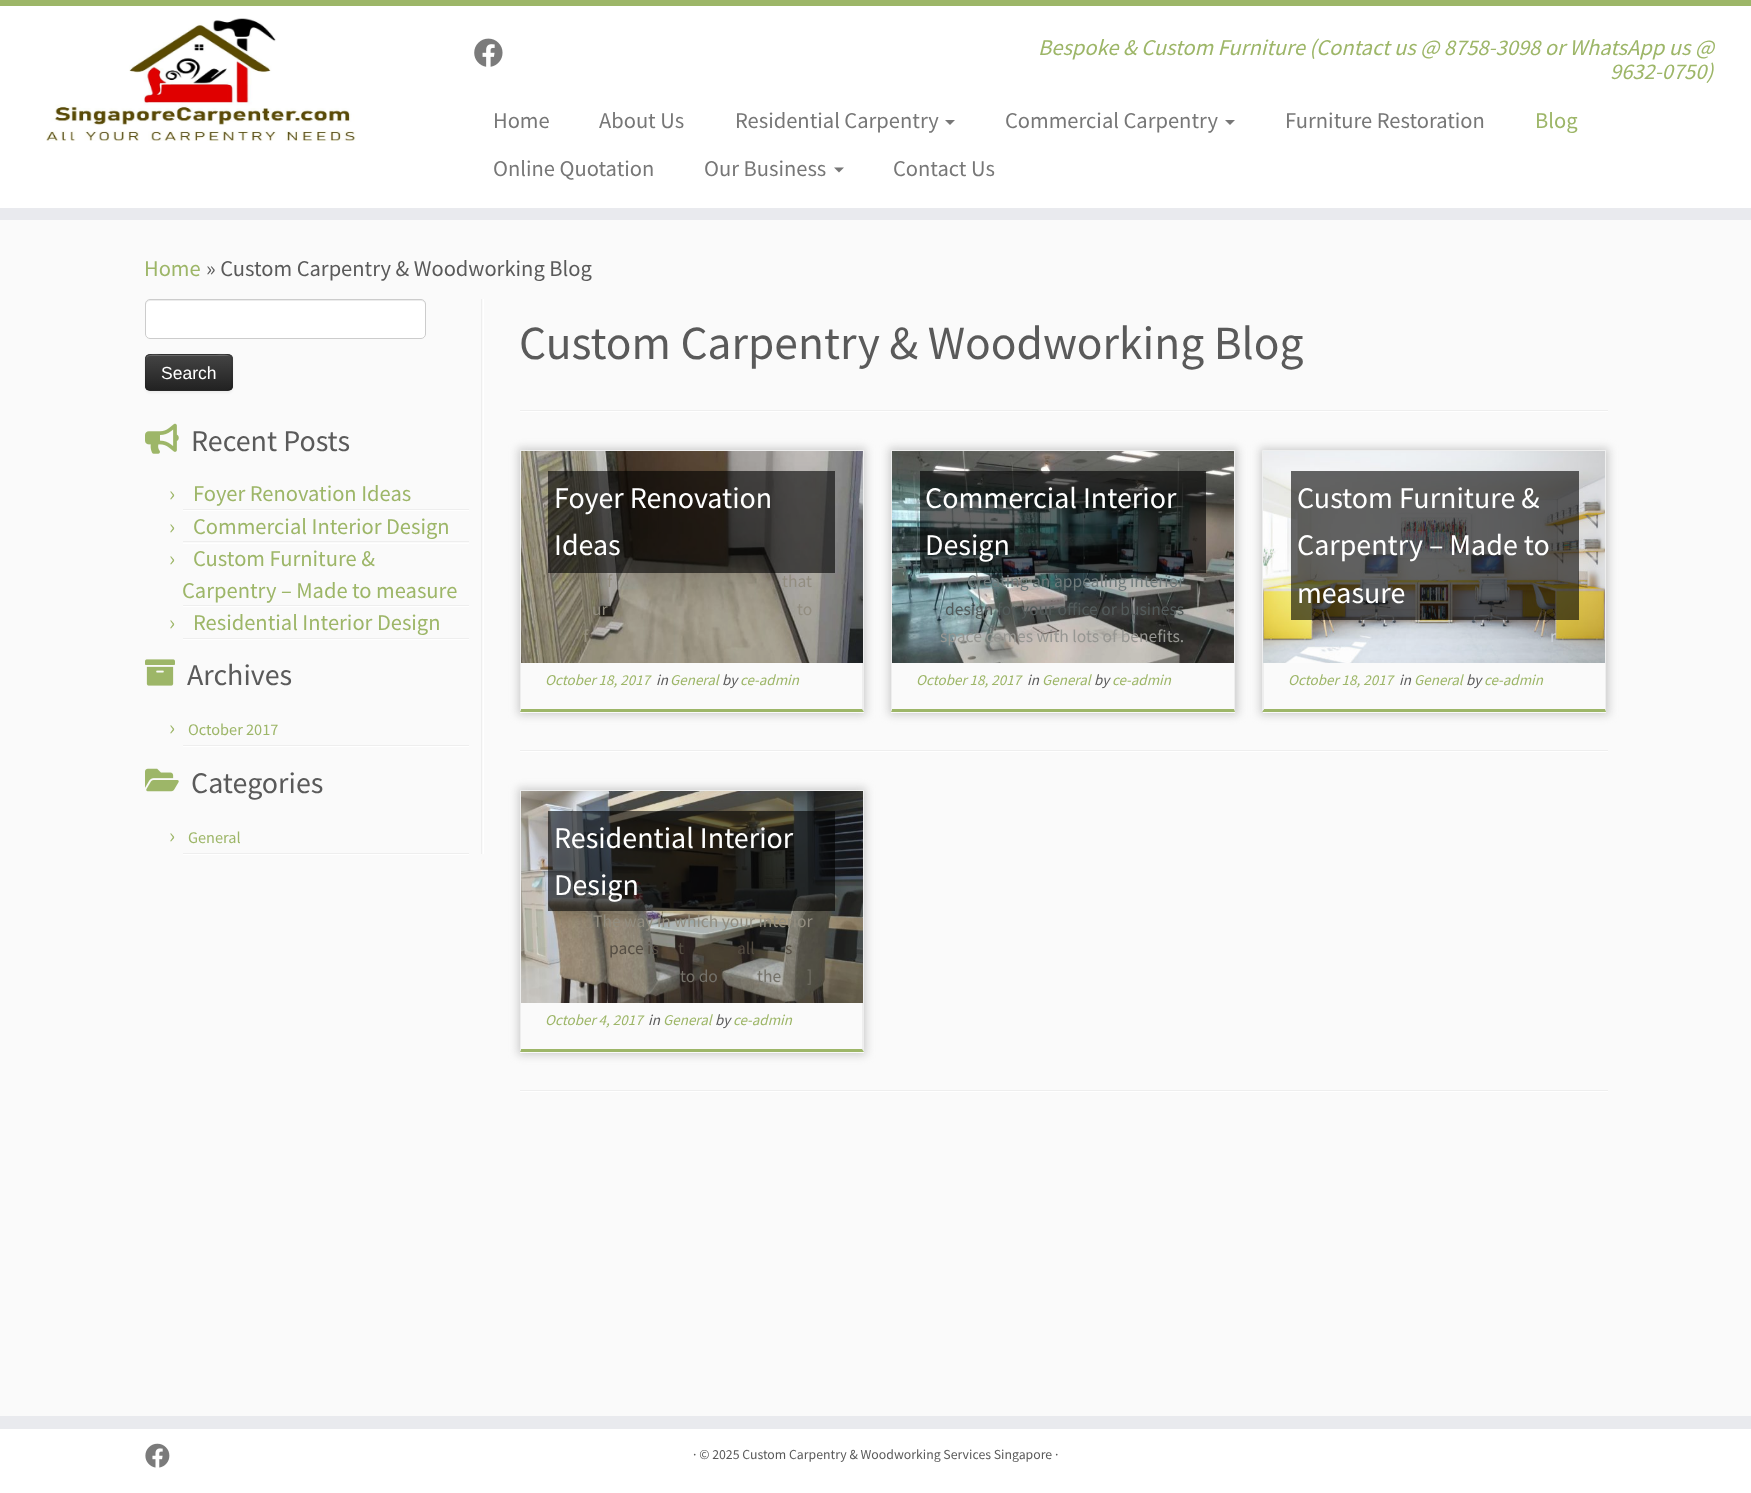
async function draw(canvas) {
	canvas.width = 1751;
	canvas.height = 1493;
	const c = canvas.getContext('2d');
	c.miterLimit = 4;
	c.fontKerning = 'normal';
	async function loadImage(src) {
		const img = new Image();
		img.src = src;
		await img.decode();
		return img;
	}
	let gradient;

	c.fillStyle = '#fafafa';
	c.fillRect(0, 0, 1751, 1493);
	for (const [x, y, w, h, color] of [
		[0, 6, 1751, 202, '#fff'],
		[0, 0, 1751, 6, '#9db668'],
		[0, 208, 1751, 12, '#e9eaee'],
	]) {
		c.fillStyle = color;
		c.fillRect(x, y, w, h);
	}
	c.drawImage(await loadImage('img1.png'), 46, 18, 310, 123);
	c.drawImage(await loadImage('img2.png'), 474, 38, 29, 29);
	c.font = 'italic 22.5px Source Sans Pro';
	c.fillStyle = '#9db668';
	c.fillText('Bespoke & Custom Furniture (Contact us @ 8758-3098 or WhatsApp us @', 1038, 55);
	c.fillText('9632-0750)', 1610, 79);
	c.font = '22.5px Source Sans Pro';
	c.fillStyle = '#777';
	for (const [text, x, y] of [
		['Home', 493, 128],
		['About Us', 599, 128],
		['Residential Carpentry', 735, 128],
	]) {
		c.fillText(text, x, y);
	}
	c.beginPath();
	c.moveTo(945, 120);
	c.lineTo(955, 120);
	c.lineTo(950, 125);
	c.closePath();
	c.fill();
	c.fillText('Commercial Carpentry', 1005, 128);
	c.beginPath();
	c.moveTo(1225, 120);
	c.lineTo(1235, 120);
	c.lineTo(1230, 125);
	c.closePath();
	c.fill();
	c.fillText('Furniture Restoration', 1285, 128);
	c.fillStyle = '#9db668';
	c.fillText('Blog', 1535, 128);
	c.fillStyle = '#777';
	c.fillText('Online Quotation', 493, 176);
	c.fillText('Our Business', 704, 176);
	c.beginPath();
	c.moveTo(834, 167.5);
	c.lineTo(844, 167.5);
	c.lineTo(839, 172.5);
	c.closePath();
	c.fill();
	c.fillText('Contact Us', 893, 176);
	c.fillStyle = '#9db668';
	c.fillText('Home', 144, 276);
	c.fillStyle = '#5a5a5a';
	c.fillText('» Custom Carpentry & Woodworking Blog', 206, 276);
	c.fillStyle = '#eee';
	c.fillRect(481, 299, 1, 555);
	c.fillStyle = '#fff';
	c.beginPath();
	c.roundRect(145, 299, 281, 40, 5);
	c.fill();
	c.fillStyle = '#ececec';
	c.beginPath();
	c.moveTo(150, 301);
	c.lineTo(421, 301);
	c.bezierCurveTo(423, 301, 425, 303, 425, 305);
	c.bezierCurveTo(425, 302, 424, 300, 421, 300);
	c.lineTo(150, 300);
	c.bezierCurveTo(147, 300, 146, 302, 146, 305);
	c.bezierCurveTo(146, 303, 148, 301, 150, 301);
	c.closePath();
	c.fill();
	c.beginPath();
	c.roundRect(145.5, 299.5, 280, 39, 4.5);
	c.strokeStyle = '#ccc';
	c.stroke();
	c.fillStyle = '#0000000d';
	c.filter = 'blur(1px)';
	c.beginPath();
	c.roundRect(145, 355, 88, 38, 5);
	c.fill();
	c.filter = 'none';
	c.fillStyle = '#363636';
	c.beginPath();
	c.roundRect(145, 354, 88, 37, 5);
	c.fill();
	c.save();
	c.beginPath();
	c.roundRect(145, 354, 88, 37, 5);
	c.clip();
	gradient = c.createLinearGradient(189, 355, 189, 390);
	gradient.addColorStop(0, '#444');
	gradient.addColorStop(1, '#222');
	c.fillStyle = gradient;
	c.fillRect(145, 355, 88, 35);
	c.restore();
	c.fillStyle = '#ffffff33';
	c.beginPath();
	c.moveTo(150, 356);
	c.lineTo(228, 356);
	c.bezierCurveTo(230, 356, 231, 358, 231, 360);
	c.bezierCurveTo(231, 352, 219, 355, 214, 355);
	c.lineTo(163, 355);
	c.bezierCurveTo(158, 355, 146, 352, 146, 360);
	c.bezierCurveTo(146, 358, 148, 356, 150, 356);
	c.closePath();
	c.fill();
	c.beginPath();
	c.moveTo(230.5, 389.5);
	c.lineTo(228, 390.5);
	c.lineTo(149.5, 390.5);
	c.lineTo(147, 389.5);
	c.strokeStyle = '#00000040';
	c.lineWidth = 1.2;
	c.stroke();
	c.beginPath();
	c.moveTo(147, 389.5);
	c.bezierCurveTo(145, 387.5, 145.5, 384, 145.5, 381.5);
	c.lineTo(145.5, 372.5);
	c.bezierCurveTo(145.5, 352.5, 142.5, 354.5, 163, 354.5);
	c.lineTo(214.5, 354.5);
	c.bezierCurveTo(235, 354.5, 232, 352.5, 232, 372.5);
	c.lineTo(232, 381.5);
	c.bezierCurveTo(232, 384, 232.5, 387.5, 230.5, 389.5);
	c.strokeStyle = '#0000001a';
	c.stroke();
	c.font = '17.5px Liberation Sans';
	c.fillStyle = '#fff';
	c.fillText('Search', 161, 379);
	c.fillRect(483, 299, 1, 555);
	c.drawImage(await loadImage('img3.png'), 145, 423, 34, 31);
	c.font = '30px Source Sans Pro';
	c.fillStyle = '#5a5a5a';
	c.fillText('Recent Posts', 191, 451);
	c.fillStyle = '#eee';
	c.fillRect(183, 509, 286, 1);
	c.font = '22.5px Source Sans Pro';
	c.fillStyle = '#9db668';
	c.fillText('›', 169, 501);
	c.fillText('Foyer Renovation Ideas', 193, 501);
	c.fillStyle = '#fff';
	c.fillRect(183, 510, 286, 1);
	c.fillStyle = '#eee';
	c.fillRect(183, 541, 286, 1);
	c.fillStyle = '#9db668';
	c.fillText('›', 169, 534);
	c.fillText('Commercial Interior Design', 193, 534);
	c.fillStyle = '#fff';
	c.fillRect(183, 543, 286, 1);
	c.fillStyle = '#eee';
	c.fillRect(183, 605, 286, 1);
	c.fillStyle = '#9db668';
	for (const [text, x, y] of [
		['›', 169, 566],
		['Custom Furniture &', 193, 566],
		['Carpentry – Made to measure', 182, 598],
	]) {
		c.fillText(text, x, y);
	}
	c.fillStyle = '#fff';
	c.fillRect(183, 606, 286, 1);
	c.fillStyle = '#eee';
	c.fillRect(183, 638, 286, 1);
	c.fillStyle = '#9db668';
	c.fillText('›', 169, 630);
	c.fillText('Residential Interior Design', 193, 630);
	c.fillStyle = '#fff';
	c.fillRect(183, 639, 286, 1);
	c.drawImage(await loadImage('img4.png'), 145, 659, 30, 27);
	c.font = '30px Source Sans Pro';
	c.fillStyle = '#5a5a5a';
	c.fillText('Archives', 187, 685);
	c.fillStyle = '#eee';
	c.fillRect(183, 745, 286, 1);
	c.font = '22.5px Source Sans Pro';
	c.fillStyle = '#9db668';
	c.fillText('›', 169, 735);
	c.font = '16.25px Source Sans Pro';
	c.fillText('October 2017', 188, 735);
	c.fillStyle = '#fff';
	c.fillRect(183, 746, 286, 1);
	c.drawImage(await loadImage('img5.png'), 145, 768, 34, 24);
	c.font = '30px Source Sans Pro';
	c.fillStyle = '#5a5a5a';
	c.fillText('Categories', 191, 793);
	c.fillStyle = '#eee';
	c.fillRect(183, 853, 286, 1);
	c.font = '22.5px Source Sans Pro';
	c.fillStyle = '#9db668';
	c.fillText('›', 169, 843);
	c.font = '16.25px Source Sans Pro';
	c.fillText('General', 188, 843);
	c.fillStyle = '#fff';
	c.fillRect(183, 854, 286, 1);
	c.font = '47.5px Source Sans Pro';
	c.fillStyle = '#5a5a5a';
	c.fillText('Custom Carpentry & Woodworking Blog', 519, 359);
	c.fillStyle = '#eee';
	c.fillRect(520, 410, 1088, 1);
	c.fillStyle = '#fff';
	c.fillRect(520, 411, 1088, 1);
	c.save();
	c.beginPath();
	c.moveTo(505, 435);
	c.lineTo(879, 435);
	c.lineTo(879, 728);
	c.lineTo(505, 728);
	c.closePath();
	c.moveTo(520, 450);
	c.lineTo(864, 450);
	c.lineTo(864, 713);
	c.lineTo(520, 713);
	c.closePath();
	c.clip('evenodd');
	c.fillStyle = '#ccc';
	c.filter = 'blur(4px)';
	c.beginPath();
	c.rect(518, 448, 348, 267);
	c.fill();
	c.filter = 'none';
	c.restore();
	c.fillStyle = '#eee';
	c.fillRect(520, 450, 344, 1);
	c.beginPath();
	c.moveTo(864, 450);
	c.lineTo(864, 712);
	c.lineTo(862, 709);
	c.lineTo(862, 451);
	c.closePath();
	c.fill();
	c.fillStyle = '#9db668';
	c.beginPath();
	c.moveTo(864, 712);
	c.lineTo(520, 712);
	c.lineTo(521, 709);
	c.lineTo(862, 709);
	c.closePath();
	c.fill();
	c.fillStyle = '#eee';
	c.beginPath();
	c.moveTo(520, 712);
	c.lineTo(520, 450);
	c.lineTo(521, 451);
	c.lineTo(521, 709);
	c.closePath();
	c.fill();
	c.drawImage(await loadImage('img6.png'), 521, 451, 342, 212);
	c.fillStyle = '#00000099';
	c.fillRect(548, 471, 287, 102);
	c.font = '30px Source Sans Pro';
	c.fillStyle = '#fff';
	c.fillText('Foyer Renovation', 554, 508);
	c.fillText('Ideas', 554, 555);
	c.font = '17.5px Source Sans Pro';
	c.fillStyle = '#928d80';
	for (const [text, x, y] of [
		['f', 607, 587],
		['that', 782, 587],
		['ur', 592, 615],
		['to', 797, 615],
	]) {
		c.fillText(text, x, y);
	}
	c.fillStyle = '#989282';
	c.fillText('f', 583, 642);
	c.font = 'italic 15px Source Sans Pro';
	c.fillStyle = '#9db668';
	c.fillText('October 18, 2017', 545, 685);
	c.fillStyle = '#5a5a5a';
	c.fillText('in', 656, 685);
	c.fillStyle = '#9db668';
	c.fillText('General', 670, 685);
	c.fillStyle = '#5a5a5a';
	c.fillText('by', 722, 685);
	c.fillStyle = '#9db668';
	c.fillText('ce-admin', 740, 685);
	c.save();
	c.beginPath();
	c.moveTo(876, 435);
	c.lineTo(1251, 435);
	c.lineTo(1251, 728);
	c.lineTo(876, 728);
	c.closePath();
	c.moveTo(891, 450);
	c.lineTo(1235, 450);
	c.lineTo(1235, 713);
	c.lineTo(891, 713);
	c.closePath();
	c.clip('evenodd');
	c.fillStyle = '#ccc';
	c.filter = 'blur(4px)';
	c.beginPath();
	c.rect(889, 448, 349, 267);
	c.fill();
	c.filter = 'none';
	c.restore();
	c.fillStyle = '#eee';
	c.fillRect(891, 450, 344, 1);
	c.beginPath();
	c.moveTo(1235, 450);
	c.lineTo(1235, 712);
	c.lineTo(1234, 709);
	c.lineTo(1234, 451);
	c.closePath();
	c.fill();
	c.fillStyle = '#9db668';
	c.beginPath();
	c.moveTo(1235, 712);
	c.lineTo(891, 712);
	c.lineTo(892, 709);
	c.lineTo(1234, 709);
	c.closePath();
	c.fill();
	c.fillStyle = '#eee';
	c.beginPath();
	c.moveTo(891, 712);
	c.lineTo(891, 450);
	c.lineTo(892, 451);
	c.lineTo(892, 709);
	c.closePath();
	c.fill();
	c.drawImage(await loadImage('img7.png'), 892, 451, 342, 212);
	c.fillStyle = '#00000099';
	c.fillRect(920, 471, 286, 102);
	c.font = '30px Source Sans Pro';
	c.fillStyle = '#fff';
	c.fillText('Commercial Interior', 925, 508);
	c.fillText('Design', 925, 555);
	c.font = '17.5px Source Sans Pro';
	c.fillStyle = '#6f7a7b';
	c.fillText('Creating an appealing interior', 967, 587);
	c.fillStyle = '#535b5b';
	c.fillText('design for your office or business', 945, 615);
	c.fillStyle = '#969692';
	c.fillText('space comes with lots of benefits.', 940, 642);
	c.font = 'italic 15px Source Sans Pro';
	c.fillStyle = '#9db668';
	c.fillText('October 18, 2017', 916, 685);
	c.fillStyle = '#5a5a5a';
	c.fillText('in', 1027, 685);
	c.fillStyle = '#9db668';
	c.fillText('General', 1042, 685);
	c.fillStyle = '#5a5a5a';
	c.fillText('by', 1094, 685);
	c.fillStyle = '#9db668';
	c.fillText('ce-admin', 1112, 685);
	c.save();
	c.beginPath();
	c.moveTo(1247, 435);
	c.lineTo(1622, 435);
	c.lineTo(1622, 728);
	c.lineTo(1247, 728);
	c.closePath();
	c.moveTo(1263, 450);
	c.lineTo(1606, 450);
	c.lineTo(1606, 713);
	c.lineTo(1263, 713);
	c.closePath();
	c.clip('evenodd');
	c.fillStyle = '#ccc';
	c.filter = 'blur(4px)';
	c.beginPath();
	c.rect(1260, 448, 349, 267);
	c.fill();
	c.filter = 'none';
	c.restore();
	c.fillStyle = '#eee';
	c.fillRect(1263, 450, 343, 1);
	c.beginPath();
	c.moveTo(1606, 450);
	c.lineTo(1606, 712);
	c.lineTo(1605, 709);
	c.lineTo(1605, 451);
	c.closePath();
	c.fill();
	c.fillStyle = '#9db668';
	c.beginPath();
	c.moveTo(1606, 712);
	c.lineTo(1262, 712);
	c.lineTo(1264, 709);
	c.lineTo(1605, 709);
	c.closePath();
	c.fill();
	c.fillStyle = '#eee';
	c.beginPath();
	c.moveTo(1262, 712);
	c.lineTo(1262, 450);
	c.lineTo(1264, 451);
	c.lineTo(1264, 709);
	c.closePath();
	c.fill();
	c.drawImage(await loadImage('img8.png'), 1263, 451, 342, 212);
	c.fillStyle = '#00000099';
	c.fillRect(1291, 471, 288, 149);
	c.font = '30px Source Sans Pro';
	c.fillStyle = '#fff';
	for (const [text, x, y] of [
		['Custom Furniture &', 1297, 508],
		['Carpentry – Made to', 1297, 555],
		['measure', 1297, 603],
	]) {
		c.fillText(text, x, y);
	}
	c.font = '17.5px Source Sans Pro';
	c.fillStyle = '#cbd1d8';
	c.fillText('r', 1550, 642);
	c.font = 'italic 15px Source Sans Pro';
	c.fillStyle = '#9db668';
	c.fillText('October 18, 2017', 1288, 685);
	c.fillStyle = '#5a5a5a';
	c.fillText('in', 1399, 685);
	c.fillStyle = '#9db668';
	c.fillText('General', 1414, 685);
	c.fillStyle = '#5a5a5a';
	c.fillText('by', 1466, 685);
	c.fillStyle = '#9db668';
	c.fillText('ce-admin', 1484, 685);
	c.fillStyle = '#eee';
	c.fillRect(520, 750, 1088, 1);
	c.fillStyle = '#fff';
	c.fillRect(520, 751, 1088, 1);
	c.save();
	c.beginPath();
	c.moveTo(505, 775);
	c.lineTo(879, 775);
	c.lineTo(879, 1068);
	c.lineTo(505, 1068);
	c.closePath();
	c.moveTo(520, 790);
	c.lineTo(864, 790);
	c.lineTo(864, 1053);
	c.lineTo(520, 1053);
	c.closePath();
	c.clip('evenodd');
	c.fillStyle = '#ccc';
	c.filter = 'blur(4px)';
	c.beginPath();
	c.rect(518, 788, 348, 267);
	c.fill();
	c.filter = 'none';
	c.restore();
	c.fillStyle = '#eee';
	c.fillRect(520, 790, 344, 1);
	c.beginPath();
	c.moveTo(864, 790);
	c.lineTo(864, 1052);
	c.lineTo(862, 1049);
	c.lineTo(862, 791);
	c.closePath();
	c.fill();
	c.fillStyle = '#9db668';
	c.beginPath();
	c.moveTo(864, 1052);
	c.lineTo(520, 1052);
	c.lineTo(521, 1049);
	c.lineTo(862, 1049);
	c.closePath();
	c.fill();
	c.fillStyle = '#eee';
	c.beginPath();
	c.moveTo(520, 1052);
	c.lineTo(520, 790);
	c.lineTo(521, 791);
	c.lineTo(521, 1049);
	c.closePath();
	c.fill();
	c.drawImage(await loadImage('img9.png'), 521, 791, 342, 212);
	c.fillStyle = '#00000099';
	c.fillRect(548, 811, 287, 100);
	c.font = '30px Source Sans Pro';
	c.fillStyle = '#fff';
	c.fillText('Residential Interior', 554, 848);
	c.fillText('Design', 554, 895);
	c.font = '17.5px Source Sans Pro';
	c.fillStyle = '#928d80';
	c.fillText('The way in which your interior', 593, 927);
	c.fillStyle = '#544d43';
	for (const [text, x, y] of [
		['pace is', 609, 954],
		['t', 678, 954],
		['all', 737, 954],
		['s', 785, 954],
	]) {
		c.fillText(text, x, y);
	}
	c.fillStyle = '#747169';
	for (const [text, x, y] of [
		['to do', 680, 982],
		['the', 757, 982],
		[']', 807, 982],
	]) {
		c.fillText(text, x, y);
	}
	c.font = 'italic 15px Source Sans Pro';
	c.fillStyle = '#9db668';
	c.fillText('October 4, 2017', 545, 1025);
	c.fillStyle = '#5a5a5a';
	c.fillText('in', 648, 1025);
	c.fillStyle = '#9db668';
	c.fillText('General', 663, 1025);
	c.fillStyle = '#5a5a5a';
	c.fillText('by', 715, 1025);
	c.fillStyle = '#9db668';
	c.fillText('ce-admin', 733, 1025);
	for (const [x, y, w, h, color] of [
		[520, 1090, 1088, 1, '#eee'],
		[520, 1091, 1088, 1, '#fff'],
		[0, 1416, 1751, 13, '#e9eaee'],
		[0, 1429, 1751, 64, '#fff'],
	]) {
		c.fillStyle = color;
		c.fillRect(x, y, w, h);
	}
	c.drawImage(await loadImage('img10.png'), 145, 1443, 25, 25);
	c.font = '13.75px Source Sans Pro';
	c.fillStyle = '#5a5a5a';
	c.fillText('· © 2025 Custom Carpentry & Woodworking Services Singapore ·', 693, 1459);
}

draw(document.querySelector('canvas'));
